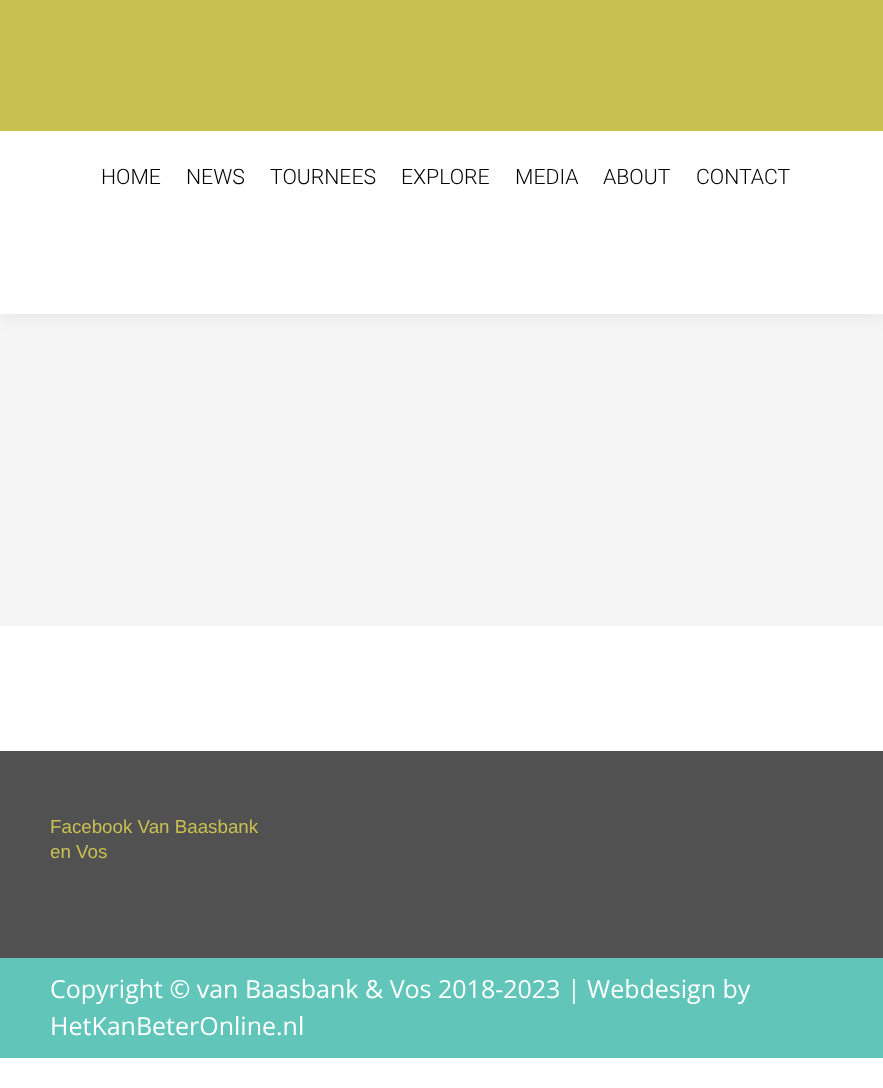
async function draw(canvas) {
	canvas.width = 883;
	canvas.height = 1088;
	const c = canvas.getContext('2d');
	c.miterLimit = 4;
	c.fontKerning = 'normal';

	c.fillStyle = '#fff';
	c.fillRect(0, 0, 883, 1088);
	c.fillStyle = '#f5f5f5';
	c.fillRect(0, 314, 883, 312);
	c.fillStyle = '#00000012';
	c.filter = 'blur(9.5px)';
	c.beginPath();
	c.rect(-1, -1, 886, 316);
	c.fill();
	c.filter = 'none';
	c.fillStyle = '#fff';
	c.fillRect(0, 131, 883, 183);
	c.fillStyle = '#c9c052';
	c.fillRect(0, 0, 883, 131);
	c.font = '300 21.25px Roboto';
	c.fillStyle = '#000';
	for (const [text, x, y] of [
		['HOME', 101, 184],
		['NEWS', 186, 184],
		['TOURNEES', 270, 184],
		['EXPLORE', 401, 184],
		['MEDIA', 515, 184],
		['ABOUT', 603, 184],
		['CONTACT', 696, 184],
	]) {
		c.fillText(text, x, y);
	}
	c.fillStyle = '#515151';
	c.fillRect(0, 751, 883, 207);
	c.font = '18.75px Liberation Sans';
	c.fillStyle = '#c9c052';
	c.fillText('Facebook Van Baasbank', 50, 833);
	c.fillText('en Vos', 50, 858);
	c.fillStyle = '#61c6b9';
	c.fillRect(0, 958, 883, 100);
	c.font = '25px Open Sans';
	c.fillStyle = '#fff';
	c.fillText('Copyright © van Baasbank & Vos 2018-2023 | Webdesign by', 50, 998);
	c.fillText('HetKanBeterOnline.nl', 50, 1035);
}

draw(document.querySelector('canvas'));
